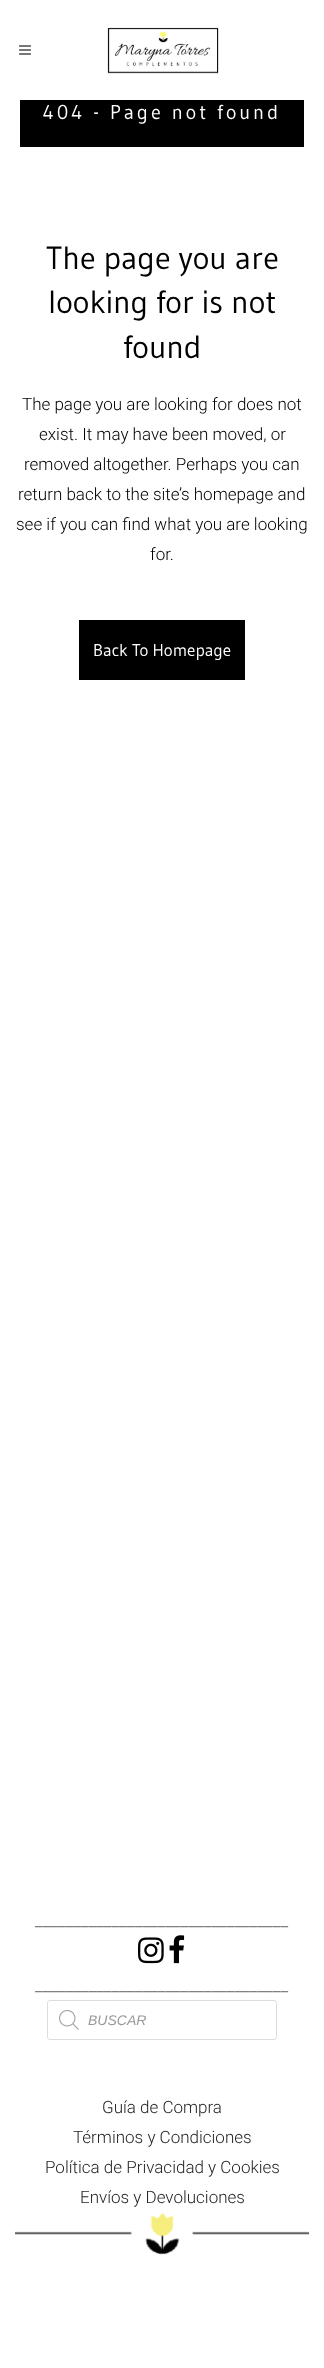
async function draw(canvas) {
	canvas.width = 324;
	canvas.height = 2368;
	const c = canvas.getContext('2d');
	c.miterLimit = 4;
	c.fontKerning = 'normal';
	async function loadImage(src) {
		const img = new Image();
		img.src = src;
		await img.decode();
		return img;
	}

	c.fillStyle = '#fff';
	c.fillRect(0, 0, 324, 2368);
	c.drawImage(await loadImage('img1.png'), 19, 45, 12, 10);
	c.drawImage(await loadImage('img2.png'), 107, 27, 112, 47);
	c.fillStyle = '#000';
	c.fillRect(20, 100, 284, 47);
	c.letterSpacing = '3px';
	c.font = '20px Gudea';
	c.fillStyle = '#fff';
	c.fillText('404 - Page not found', 43, 119);
	c.letterSpacing = '0px';
	c.font = '32px Gudea';
	c.fillStyle = '#000';
	for (const [text, x, y] of [
		['The page you are', 46, 269],
		['looking for is not', 48, 313],
		['found', 123, 358],
	]) {
		c.fillText(text, x, y);
	}
	c.font = '300 17px Roboto';
	for (const [text, x, y] of [
		['The page you are looking for does not', 22, 410],
		['exist. It may have been moved, or', 39, 440],
		['removed altogether. Perhaps you can', 24, 470],
		['return back to the site’s homepage and', 18, 500],
		['see if you can find what you are looking', 16, 530],
		['for.', 150, 560],
	]) {
		c.fillText(text, x, y);
	}
	c.fillRect(79, 620, 166, 60);
	c.font = '17px Gudea';
	c.fillStyle = '#fff';
	c.fillText('Back To Homepage', 93, 656);
	c.font = '17px Roboto';
	c.fillStyle = '#818181';
	c.fillText('_________________________________', 35, 1926);
	c.drawImage(await loadImage('img3.png'), 138, 1937, 26, 27);
	c.drawImage(await loadImage('img4.png'), 169, 1935, 16, 29);
	c.fillText('_________________________________', 35, 1991);
	c.beginPath();
	c.roundRect(47.5, 2000.5, 229, 39, 2.5);
	c.strokeStyle = '#ddd';
	c.stroke();
	c.drawImage(await loadImage('img5.png'), 59, 2010, 20, 20);
	c.font = 'italic 14px Liberation Sans';
	c.fillStyle = '#999';
	c.fillText('BUSCAR', 88, 2025);
	c.font = '300 17px Roboto';
	c.fillStyle = '#262626';
	for (const [text, x, y] of [
		['Guía de Compra', 102, 2113],
		['Términos y Condiciones', 73, 2143],
		['Política de Privacidad y Cookies', 45, 2173],
		['Envíos y Devoluciones', 80, 2203],
	]) {
		c.fillText(text, x, y);
	}
	c.drawImage(await loadImage('img6.png'), 15, 2212, 294, 43);
}

draw(document.querySelector('canvas'));
